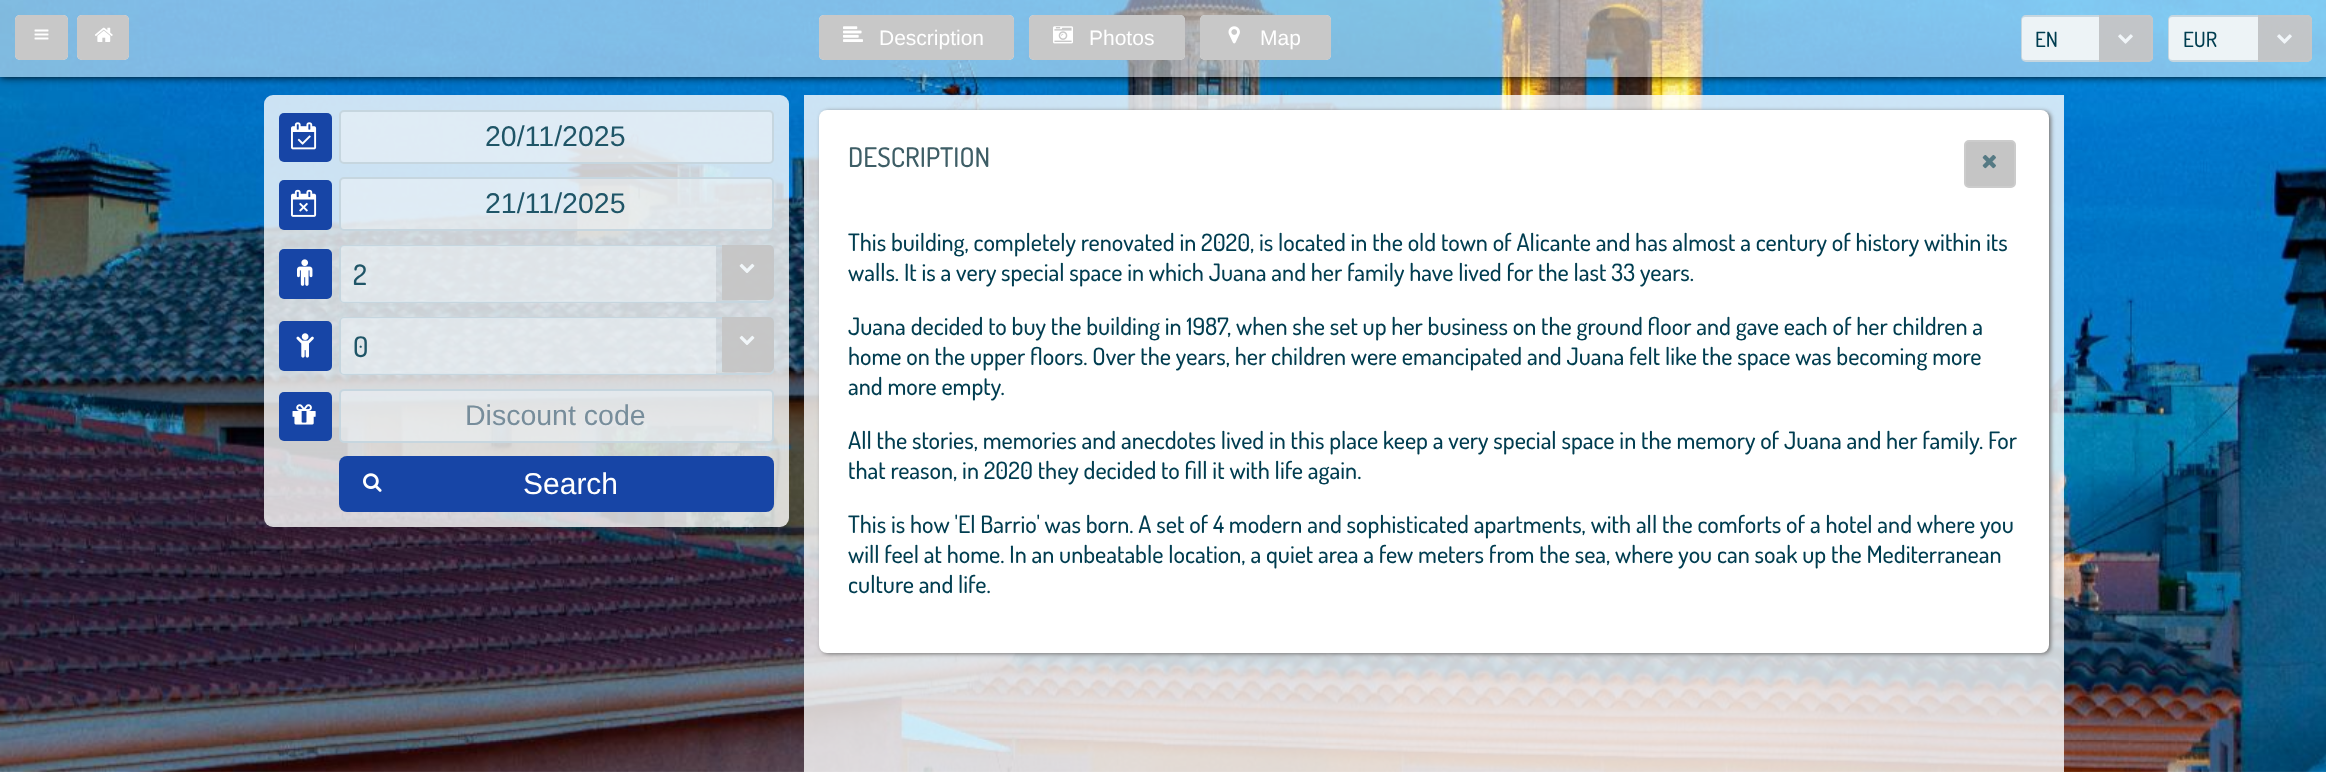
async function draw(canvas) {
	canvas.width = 2326;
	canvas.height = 772;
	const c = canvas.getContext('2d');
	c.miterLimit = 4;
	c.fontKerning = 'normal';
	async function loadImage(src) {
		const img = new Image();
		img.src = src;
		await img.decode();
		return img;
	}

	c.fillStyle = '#fff';
	c.fillRect(0, 0, 2326, 772);
	c.drawImage(await loadImage('img1.png'), 0, 0, 2326, 772);
	c.save();
	c.beginPath();
	c.moveTo(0, 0);
	c.lineTo(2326, 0);
	c.lineTo(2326, 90);
	c.lineTo(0, 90);
	c.closePath();
	c.moveTo(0, 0);
	c.lineTo(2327, 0);
	c.lineTo(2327, 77);
	c.lineTo(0, 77);
	c.closePath();
	c.clip('evenodd');
	c.fillStyle = '#000';
	c.filter = 'blur(4px)';
	c.beginPath();
	c.rect(0, 0, 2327, 77);
	c.fill();
	c.filter = 'none';
	c.restore();
	c.fillStyle = '#ffffff80';
	c.fillRect(0, 0, 2326, 77);
	c.fillStyle = '#efefef';
	c.beginPath();
	c.roundRect(15, 15, 53, 45, 5);
	c.fill();
	c.fillStyle = '#c5c5c5f2';
	c.beginPath();
	c.roundRect(15, 15, 53, 45, 5);
	c.fill();
	c.drawImage(await loadImage('img2.png'), 34, 29, 15, 11);
	c.fillStyle = '#efefef';
	c.beginPath();
	c.roundRect(77, 15, 52, 45, 5);
	c.fill();
	c.fillStyle = '#c5c5c5f2';
	c.beginPath();
	c.roundRect(77, 15, 52, 45, 5);
	c.fill();
	c.drawImage(await loadImage('img3.png'), 95, 27, 18, 15);
	c.fillStyle = '#efefef';
	c.beginPath();
	c.roundRect(819, 15, 195, 45, 5);
	c.fill();
	c.fillStyle = '#c5c5c5f2';
	c.beginPath();
	c.roundRect(819, 15, 195, 45, 5);
	c.fill();
	c.drawImage(await loadImage('img4.png'), 843, 26, 20, 16);
	c.font = '21px Liberation Sans';
	c.fillStyle = '#fff';
	c.fillText('Description', 879, 45);
	c.fillStyle = '#efefef';
	c.beginPath();
	c.roundRect(1029, 15, 156, 45, 5);
	c.fill();
	c.fillStyle = '#c5c5c5f2';
	c.beginPath();
	c.roundRect(1029, 15, 156, 45, 5);
	c.fill();
	c.drawImage(await loadImage('img5.png'), 1053, 26, 20, 18);
	c.fillStyle = '#fff';
	c.fillText('Photos', 1089, 45);
	c.fillStyle = '#efefef';
	c.beginPath();
	c.roundRect(1200, 15, 131, 45, 5);
	c.fill();
	c.fillStyle = '#c5c5c5f2';
	c.beginPath();
	c.roundRect(1200, 15, 131, 45, 5);
	c.fill();
	c.drawImage(await loadImage('img6.png'), 1228, 26, 12, 18);
	c.fillStyle = '#fff';
	c.fillText('Map', 1260, 45);
	c.beginPath();
	c.roundRect(2022, 16, 130, 45, 4);
	c.strokeStyle = '#c6d6df';
	c.lineWidth = 2;
	c.stroke();
	c.fillStyle = '#edf3f6';
	c.beginPath();
	c.roundRect(2022, 17, 77, 43, [3, 0, 0, 3]);
	c.fill();
	c.font = '500 21px Dosis';
	c.fillStyle = '#003d50';
	c.fillText('EN', 2035, 47);
	c.fillStyle = '#c5c5c5f2';
	c.beginPath();
	c.roundRect(2099, 15, 54, 47, [0, 5, 5, 0]);
	c.fill();
	c.drawImage(await loadImage('img7.png'), 2118, 34, 15, 10);
	c.beginPath();
	c.roundRect(2169, 16, 142, 45, 4);
	c.stroke();
	c.fillStyle = '#edf3f6';
	c.beginPath();
	c.roundRect(2169, 17, 89, 43, [3, 0, 0, 3]);
	c.fill();
	c.fillStyle = '#003d50';
	c.fillText('EUR', 2183, 47);
	c.fillStyle = '#c5c5c5f2';
	c.beginPath();
	c.roundRect(2258, 15, 54, 47, [0, 5, 5, 0]);
	c.fill();
	c.drawImage(await loadImage('img8.png'), 2277, 34, 15, 10);
	c.fillStyle = '#ffffffcc';
	c.beginPath();
	c.roundRect(264, 95, 525, 432, 9);
	c.fill();
	c.fillStyle = '#1745a6';
	c.beginPath();
	c.roundRect(279, 113, 53, 49, 5);
	c.fill();
	c.drawImage(await loadImage('img9.png'), 291, 122, 26, 28);
	c.fillStyle = '#edf3f691';
	c.beginPath();
	c.roundRect(340, 111, 433, 52, 4);
	c.fill();
	c.stroke();
	c.font = '28.5px Liberation Sans';
	c.fillStyle = '#1f5567';
	c.fillText('20/11/2025', 485, 146);
	c.fillStyle = '#1745a6';
	c.beginPath();
	c.roundRect(279, 180, 53, 50, 5);
	c.fill();
	c.drawImage(await loadImage('img10.png'), 291, 189, 26, 28);
	c.fillStyle = '#edf3f691';
	c.beginPath();
	c.roundRect(340, 178, 433, 52, 4);
	c.fill();
	c.stroke();
	c.fillStyle = '#1f5567';
	c.fillText('21/11/2025', 485, 213);
	c.fillStyle = '#1745a6';
	c.beginPath();
	c.roundRect(279, 249, 53, 50, 5);
	c.fill();
	c.drawImage(await loadImage('img11.png'), 297, 259, 16, 27);
	c.beginPath();
	c.roundRect(340, 246, 433, 56, 4);
	c.stroke();
	c.fillStyle = '#edf3f691';
	c.beginPath();
	c.roundRect(341, 246, 375, 56, [3, 0, 0, 3]);
	c.fill();
	c.font = '500 28.5px Dosis';
	c.fillStyle = '#1f5567';
	c.fillText('2', 353, 285);
	c.fillStyle = '#c5c5c5f2';
	c.beginPath();
	c.roundRect(722, 245, 52, 55, [0, 5, 5, 0]);
	c.fill();
	c.drawImage(await loadImage('img12.png'), 739, 263, 16, 10);
	c.fillStyle = '#1745a6';
	c.beginPath();
	c.roundRect(279, 321, 53, 50, 5);
	c.fill();
	c.drawImage(await loadImage('img13.png'), 296, 333, 18, 25);
	c.beginPath();
	c.roundRect(340, 318, 433, 56, 4);
	c.stroke();
	c.fillStyle = '#edf3f691';
	c.beginPath();
	c.roundRect(341, 318, 375, 56, [3, 0, 0, 3]);
	c.fill();
	c.fillStyle = '#1f5567';
	c.fillText('0', 353, 357);
	c.fillStyle = '#c5c5c5f2';
	c.beginPath();
	c.roundRect(722, 317, 52, 55, [0, 5, 5, 0]);
	c.fill();
	c.drawImage(await loadImage('img14.png'), 739, 335, 16, 10);
	c.fillStyle = '#1745a6';
	c.beginPath();
	c.roundRect(279, 392, 53, 49, 5);
	c.fill();
	c.drawImage(await loadImage('img15.png'), 292, 404, 24, 21);
	c.fillStyle = '#edf3f691';
	c.beginPath();
	c.roundRect(340, 390, 433, 52, 4);
	c.fill();
	c.stroke();
	c.font = '28.5px Liberation Sans';
	c.fillStyle = '#778d9b';
	c.fillText('Discount code', 465, 425);
	c.fillStyle = '#1745a6';
	c.beginPath();
	c.roundRect(339, 456, 435, 56, 8);
	c.fill();
	c.drawImage(await loadImage('img16.png'), 363, 473, 19, 19);
	c.font = '30px Liberation Sans';
	c.fillStyle = '#fff';
	c.fillText('Search', 523, 494);
	c.fillStyle = '#ffffffcc';
	c.fillRect(804, 95, 1260, 677);
	c.fillStyle = '#777';
	c.filter = 'blur(2px)';
	c.beginPath();
	c.roundRect(821, 111, 1230, 543, 8);
	c.fill();
	c.filter = 'none';
	c.fillStyle = '#fff';
	c.beginPath();
	c.roundRect(819, 110, 1230, 543, 8);
	c.fill();
	c.font = '500 27px Dosis';
	c.fillStyle = '#3e5e66';
	c.fillText('DESCRIPTION', 848, 167);
	c.fillStyle = '#c5c5c5';
	c.beginPath();
	c.roundRect(1965, 141, 50, 46, 4);
	c.fill();
	c.strokeStyle = '#ccc';
	c.stroke();
	c.drawImage(await loadImage('img17.png'), 1982, 155, 14, 14);
	c.font = '500 24px Dosis';
	c.fillStyle = '#003d50';
	for (const [text, x, y] of [
		['This building, completely renovated in 2020, is located in the old town of Alicante and has almost a century of history within its', 848, 251],
		['walls. It is a very special space in which Juana and her family have lived for the last 33 years.', 848, 281],
		['Juana decided to buy the building in 1987, when she set up her business on the ground floor and gave each of her children a', 848, 335],
		['home on the upper floors. Over the years, her children were emancipated and Juana felt like the space was becoming more', 848, 365],
		['and more empty.', 848, 395],
		['All the stories, memories and anecdotes lived in this place keep a very special space in the memory of Juana and her family. For', 848, 449],
		['that reason, in 2020 they decided to fill it with life again.', 848, 479],
		['This is how \'El Barrio\' was born. A set of 4 modern and sophisticated apartments, with all the comforts of a hotel and where you', 848, 533],
		['will feel at home. In an unbeatable location, a quiet area a few meters from the sea, where you can soak up the Mediterranean', 848, 563],
		['culture and life.', 848, 593],
	]) {
		c.fillText(text, x, y);
	}
}

draw(document.querySelector('canvas'));
